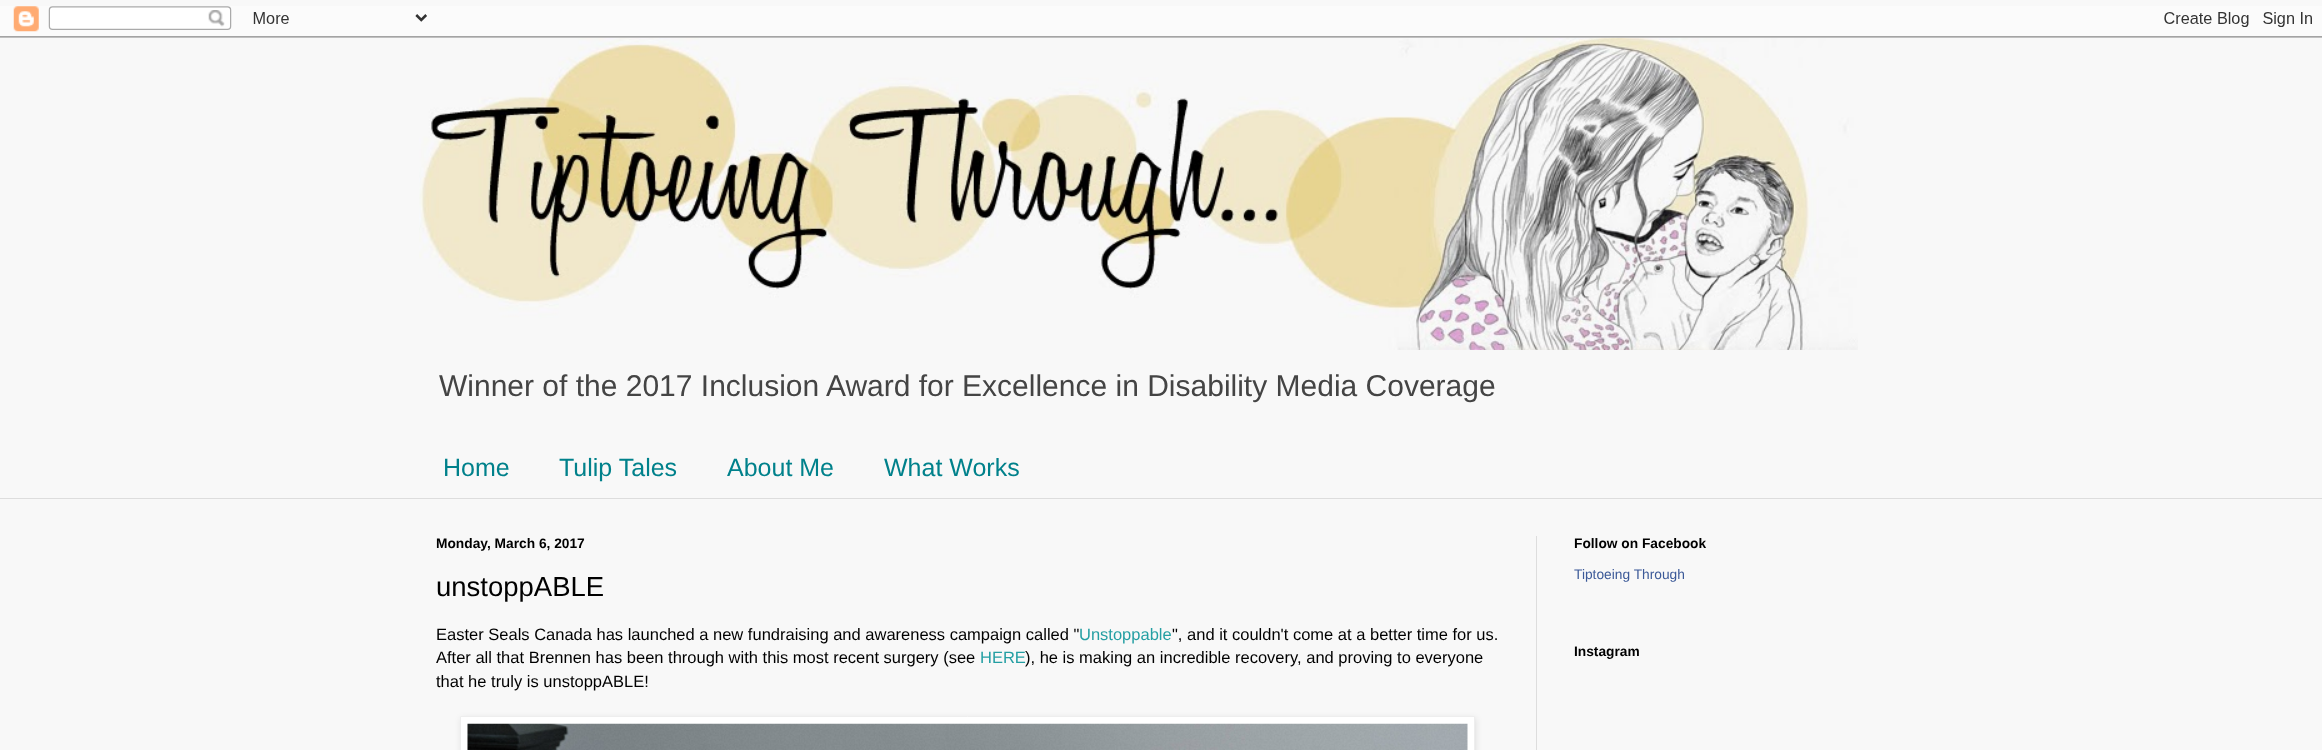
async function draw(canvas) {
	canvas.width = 2322;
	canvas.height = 750;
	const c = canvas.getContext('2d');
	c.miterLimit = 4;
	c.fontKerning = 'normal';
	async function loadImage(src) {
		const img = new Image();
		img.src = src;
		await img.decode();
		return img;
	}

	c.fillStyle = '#f8f8f8';
	c.fillRect(0, 0, 2322, 750);
	c.drawImage(await loadImage('img2.png'), 419, 37, 1439, 313);
	c.drawImage(await loadImage('img1.png'), 0, 6, 2322, 32);
	c.font = '30px Liberation Sans';
	c.fillStyle = '#444';
	c.fillText('Winner of the 2017 Inclusion Award for Excellence in Disability Media Coverage', 439, 396);
	c.font = '25px Liberation Sans';
	c.fillStyle = '#00818b';
	for (const [text, x, y] of [
		['Home', 443, 476],
		['Tulip Tales', 559, 476],
		['About Me', 727, 476],
		['What Works', 884, 476],
	]) {
		c.fillText(text, x, y);
	}
	c.fillStyle = '#ddd';
	c.fillRect(0, 498, 2322, 1);
	c.fillRect(1536, 536, 1, 214);
	c.font = 'bold 13.75px Liberation Sans';
	c.fillStyle = '#000';
	c.fillText('Monday, March 6, 2017', 436, 548);
	c.font = '27.5px Liberation Sans';
	c.fillText('unstoppABLE', 436, 596);
	c.font = '16.5px Liberation Sans';
	c.fillText('Easter Seals Canada has launched a new fundraising and awareness campaign called "', 436, 640);
	c.fillStyle = '#249fa3';
	c.fillText('Unstoppable', 1079, 640);
	c.fillStyle = '#000';
	c.fillText('", and it couldn\'t come at a better time for us.', 1172, 640);
	c.fillText('After all that Brennen has been through with this most recent surgery (see', 436, 663);
	c.fillStyle = '#249fa3';
	c.fillText('HERE', 980, 663);
	c.fillStyle = '#000';
	c.fillText('), he is making an incredible recovery, and proving to everyone', 1025, 663);
	c.fillText('that he truly is unstoppABLE!', 436, 687);
	c.fillStyle = '#0000001a';
	c.filter = 'blur(3px)';
	c.beginPath();
	c.rect(461, 718, 1015, 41);
	c.fill();
	c.filter = 'none';
	c.fillStyle = '#fff';
	c.beginPath();
	c.rect(460.5, 716.5, 1014, 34);
	c.fill();
	c.strokeStyle = '#eee';
	c.stroke();
	c.drawImage(await loadImage('img3.png'), 467, 723, 1001, 27);
	c.font = 'bold 13.75px Liberation Sans';
	c.fillStyle = '#000';
	c.fillText('Follow on Facebook', 1574, 548);
	c.font = '13.75px Liberation Sans';
	c.fillStyle = '#3b5998';
	c.fillText('Tiptoeing Through', 1574, 579);
	c.font = 'bold 13.75px Liberation Sans';
	c.fillStyle = '#000';
	c.fillText('Instagram', 1574, 656);
}

draw(document.querySelector('canvas'));
